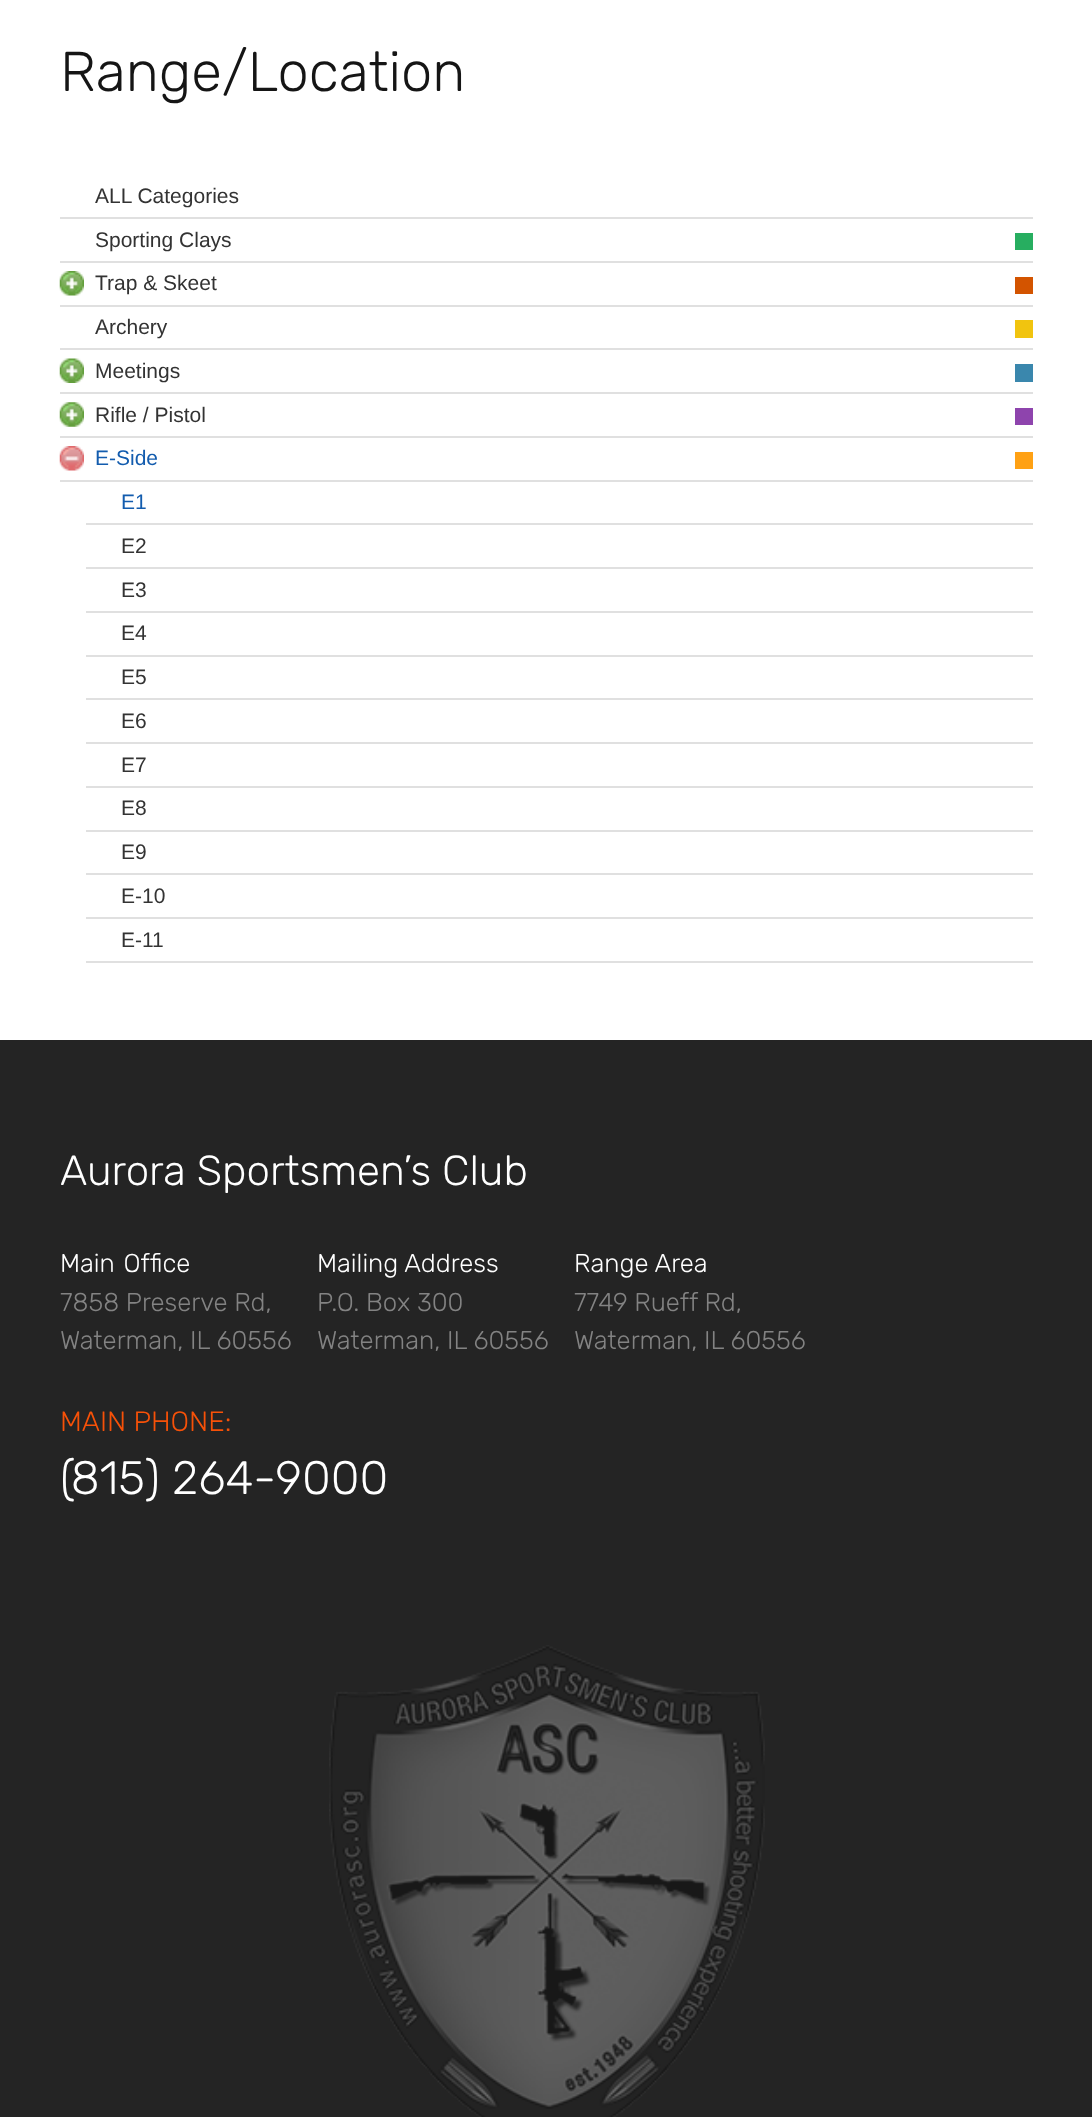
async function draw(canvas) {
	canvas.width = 1092;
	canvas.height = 2117;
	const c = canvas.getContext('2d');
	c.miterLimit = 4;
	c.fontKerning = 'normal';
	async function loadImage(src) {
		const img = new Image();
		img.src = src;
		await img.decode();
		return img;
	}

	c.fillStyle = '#fff';
	c.fillRect(0, 0, 1092, 2117);
	c.font = '300 56px Rubik';
	c.fillStyle = '#151515';
	c.fillText('Range/Location', 60, 91);
	c.fillStyle = '#e0e0e0';
	c.fillRect(60, 217, 973, 2);
	c.font = '21px Arimo';
	c.fillStyle = '#333';
	c.fillText('ALL Categories', 95, 203);
	c.fillStyle = '#e0e0e0';
	c.fillRect(60, 261, 973, 2);
	c.fillStyle = '#333';
	c.fillText('Sporting Clays', 95, 247);
	c.fillStyle = '#27ae60';
	c.fillRect(1015, 233, 18, 17);
	c.drawImage(await loadImage('img1.png'), 59, 271, 25, 25);
	c.fillStyle = '#e0e0e0';
	c.fillRect(60, 305, 973, 2);
	c.fillStyle = '#333';
	c.fillText('Trap & Skeet', 95, 290);
	c.fillStyle = '#d35400';
	c.fillRect(1015, 277, 18, 17);
	c.fillStyle = '#e0e0e0';
	c.fillRect(60, 348, 973, 2);
	c.fillStyle = '#333';
	c.fillText('Archery', 95, 334);
	c.fillStyle = '#f1c40f';
	c.fillRect(1015, 320, 18, 18);
	c.drawImage(await loadImage('img2.png'), 59, 358, 25, 25);
	c.fillStyle = '#e0e0e0';
	c.fillRect(60, 392, 973, 2);
	c.fillStyle = '#333';
	c.fillText('Meetings', 95, 378);
	c.fillStyle = '#3a87ad';
	c.fillRect(1015, 364, 18, 18);
	c.drawImage(await loadImage('img3.png'), 59, 402, 25, 25);
	c.fillStyle = '#e0e0e0';
	c.fillRect(60, 436, 973, 2);
	c.fillStyle = '#333';
	c.fillText('Rifle / Pistol', 95, 422);
	c.fillStyle = '#8e44ad';
	c.fillRect(1015, 408, 18, 17);
	c.drawImage(await loadImage('img4.png'), 59, 446, 25, 25);
	c.fillStyle = '#e0e0e0';
	c.fillRect(60, 480, 973, 2);
	c.fillStyle = '#135cae';
	c.fillText('E-Side', 95, 465);
	c.fillStyle = '#ffa114';
	c.fillRect(1015, 452, 18, 17);
	c.fillStyle = '#e0e0e0';
	c.fillRect(86, 523, 947, 2);
	c.fillStyle = '#135cae';
	c.fillText('E1', 121, 509);
	c.fillStyle = '#e0e0e0';
	c.fillRect(86, 567, 947, 2);
	c.fillStyle = '#333';
	c.fillText('E2', 121, 553);
	c.fillStyle = '#e0e0e0';
	c.fillRect(86, 611, 947, 2);
	c.fillStyle = '#333';
	c.fillText('E3', 121, 597);
	c.fillStyle = '#e0e0e0';
	c.fillRect(86, 655, 947, 2);
	c.fillStyle = '#333';
	c.fillText('E4', 121, 640);
	c.fillStyle = '#e0e0e0';
	c.fillRect(86, 698, 947, 2);
	c.fillStyle = '#333';
	c.fillText('E5', 121, 684);
	c.fillStyle = '#e0e0e0';
	c.fillRect(86, 742, 947, 2);
	c.fillStyle = '#333';
	c.fillText('E6', 121, 728);
	c.fillStyle = '#e0e0e0';
	c.fillRect(86, 786, 947, 2);
	c.fillStyle = '#333';
	c.fillText('E7', 121, 772);
	c.fillStyle = '#e0e0e0';
	c.fillRect(86, 830, 947, 2);
	c.fillStyle = '#333';
	c.fillText('E8', 121, 815);
	c.fillStyle = '#e0e0e0';
	c.fillRect(86, 873, 947, 2);
	c.fillStyle = '#333';
	c.fillText('E9', 121, 859);
	c.fillStyle = '#e0e0e0';
	c.fillRect(86, 917, 947, 2);
	c.fillStyle = '#333';
	c.fillText('E-10', 121, 903);
	c.fillStyle = '#e0e0e0';
	c.fillRect(86, 961, 947, 2);
	c.fillStyle = '#333';
	c.fillText('E-11', 121, 947);
	c.fillStyle = '#242424';
	c.fillRect(0, 1040, 1092, 1077);
	c.font = '300 42px Rubik';
	c.fillStyle = '#fff';
	c.fillText('Aurora Sportsmen’s Club', 60, 1185);
	c.wordSpacing = '2px';
	c.font = '300 25.75px Rubik';
	c.fillText('Main Office', 60, 1272);
	c.wordSpacing = '0px';
	c.fillStyle = '#838383';
	c.fillText('7858 Preserve Rd,', 60, 1311);
	c.fillText('Waterman, IL 60556', 60, 1349);
	c.fillStyle = '#fff';
	c.fillText('Mailing Address', 317, 1272);
	c.fillStyle = '#838383';
	c.fillText('P.O. Box 300', 317, 1311);
	c.fillText('Waterman, IL 60556', 317, 1349);
	c.fillStyle = '#fff';
	c.fillText('Range Area', 574, 1272);
	c.fillStyle = '#838383';
	c.fillText('7749 Rueff Rd,', 574, 1311);
	c.fillText('Waterman, IL 60556', 574, 1349);
	c.font = '300 28px Rubik';
	c.fillStyle = '#f75108';
	c.fillText('MAIN PHONE:', 60, 1431);
	c.font = '300 46.75px Rubik';
	c.fillStyle = '#fff';
	c.fillText('(815) 264-9000', 60, 1494);
	c.drawImage(await loadImage('img5.png'), 329, 1645, 436, 472);
}

draw(document.querySelector('canvas'));
